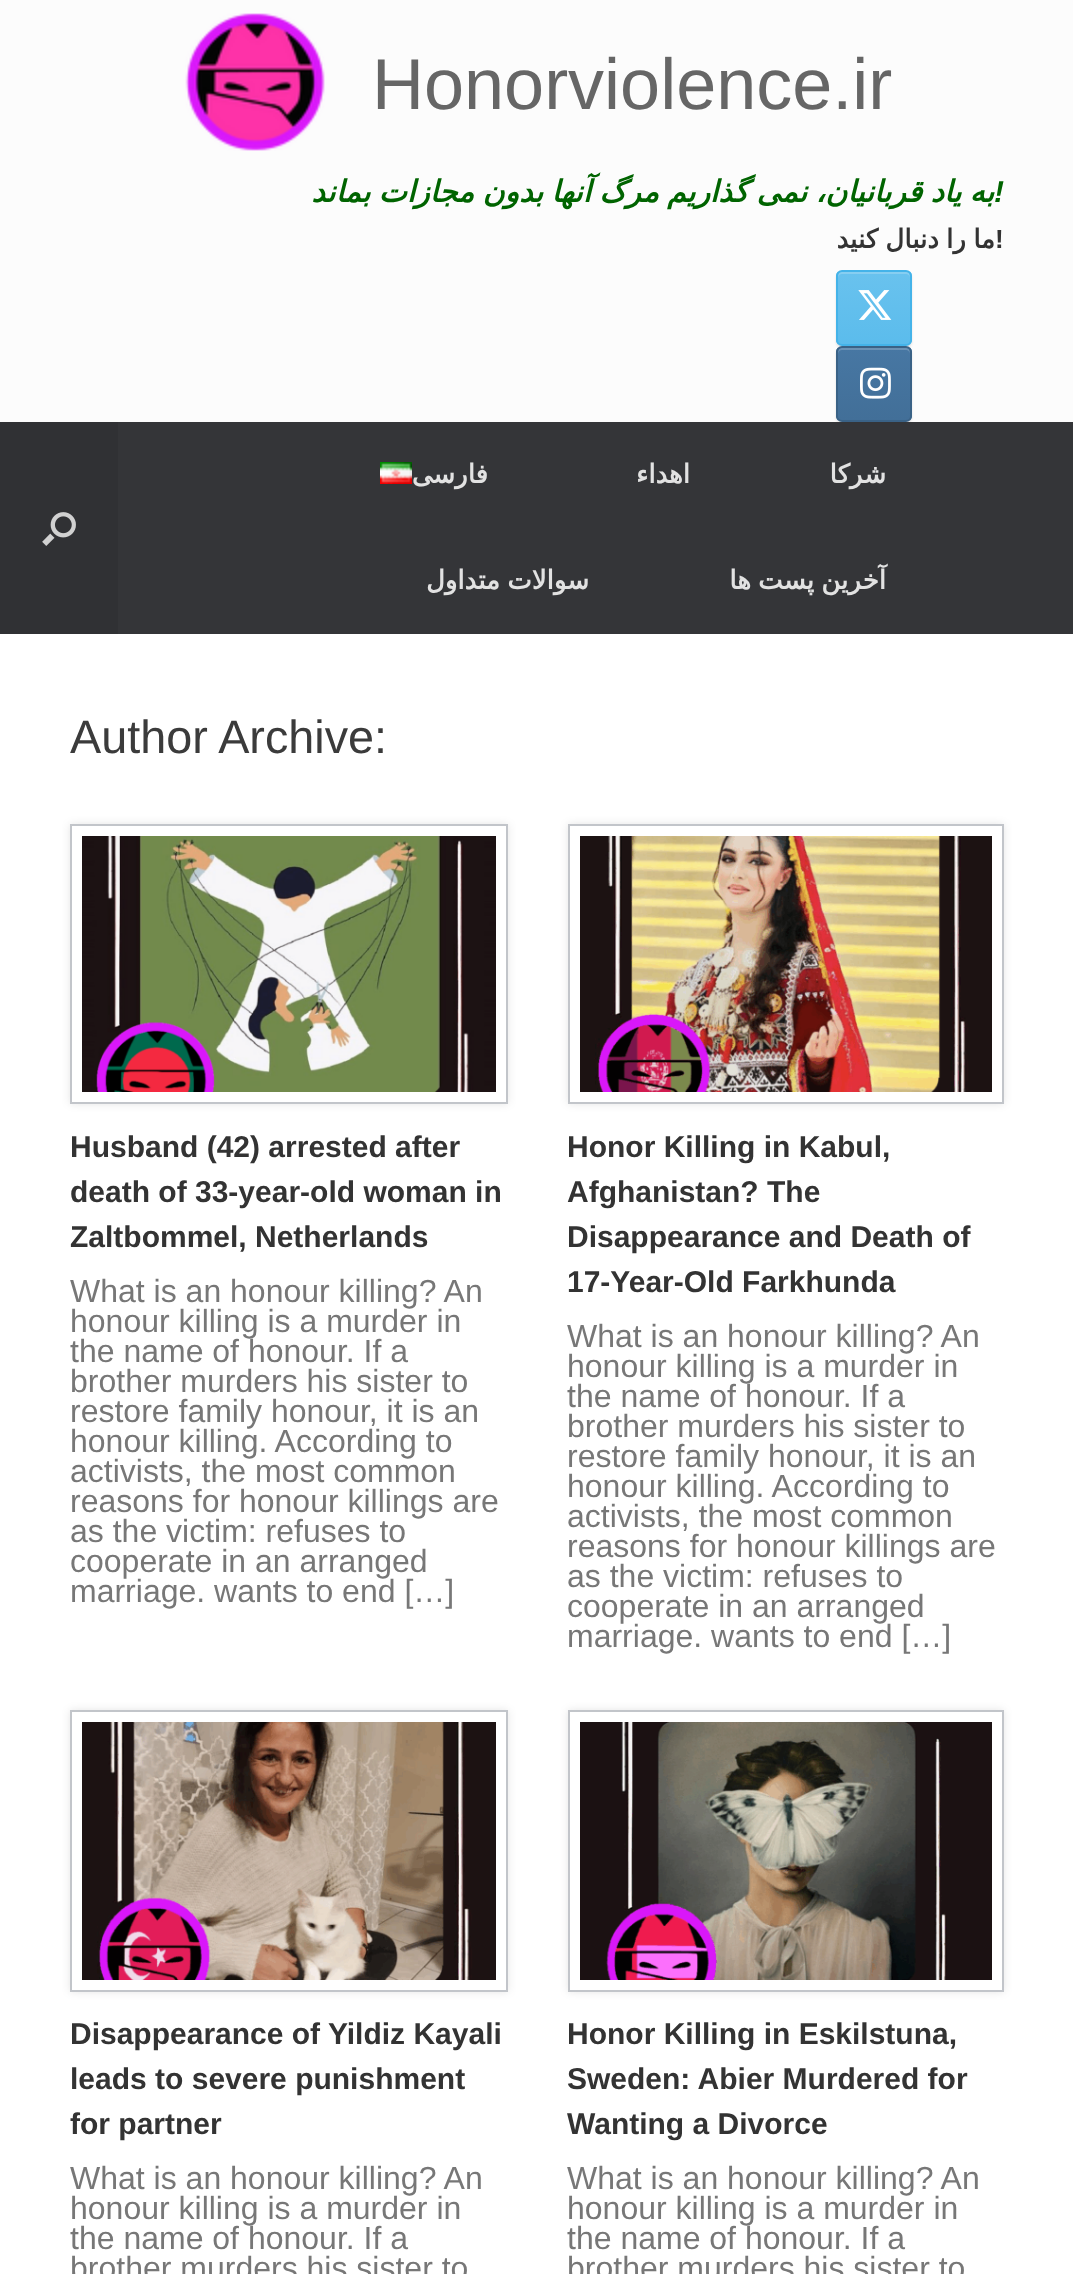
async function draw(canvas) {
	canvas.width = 1073;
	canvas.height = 2274;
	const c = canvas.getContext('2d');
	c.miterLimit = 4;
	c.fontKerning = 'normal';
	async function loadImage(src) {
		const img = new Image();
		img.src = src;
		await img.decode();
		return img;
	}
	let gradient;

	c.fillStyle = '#fcfcfc';
	c.fillRect(0, 0, 1073, 2274);
	c.drawImage(await loadImage('img1.png'), 185, 13, 140, 138);
	c.font = '72px Liberation Sans';
	c.fillStyle = '#666';
	c.fillText('Honorviolence.ir', 372, 109);
	c.wordSpacing = '-1.25px';
	c.direction = 'rtl';
	c.font = 'italic bold 30px DejaVu Sans';
	c.fillStyle = '#006400';
	c.fillText('به یاد قربانیان، نمی گذاریم مرگ آنها بدون مجازات بماند', 994, 202);
	c.wordSpacing = '0px';
	c.direction = 'ltr';
	c.font = 'italic bold 30px Liberation Sans';
	c.fillText('!', 994, 202);
	c.wordSpacing = '-1px';
	c.direction = 'rtl';
	c.font = 'bold 26px DejaVu Sans';
	c.fillStyle = '#333';
	c.fillText('ما را دنبال کنید', 995, 248);
	c.wordSpacing = '0px';
	c.direction = 'ltr';
	c.font = 'bold 26px Liberation Sans';
	c.fillText('!', 995, 248);
	c.fillStyle = '#0000001a';
	c.filter = 'blur(1px)';
	c.beginPath();
	c.roundRect(836, 272, 76, 76, 6);
	c.fill();
	c.filter = 'none';
	c.save();
	c.beginPath();
	c.roundRect(836, 270, 76, 76, 6);
	c.clip();
	gradient = c.createLinearGradient(874, 344, 874, 272);
	gradient.addColorStop(0, '#5bbcec');
	gradient.addColorStop(1, '#69c2ee');
	c.fillStyle = gradient;
	c.fillRect(836, 272, 76, 72);
	c.restore();
	c.fillStyle = '#87cef1';
	c.beginPath();
	c.moveTo(842, 274);
	c.lineTo(906, 274);
	c.bezierCurveTo(908, 274, 910, 276, 910, 278);
	c.bezierCurveTo(910, 269, 903, 272, 895, 272);
	c.lineTo(853, 272);
	c.bezierCurveTo(845, 272, 838, 269, 838, 278);
	c.bezierCurveTo(838, 276, 840, 274, 842, 274);
	c.closePath();
	c.fill();
	c.beginPath();
	c.roundRect(837, 271, 74, 74, 5);
	c.strokeStyle = '#44b3e9';
	c.lineWidth = 2;
	c.stroke();
	c.drawImage(await loadImage('img2.png'), 858, 290, 34, 30);
	c.fillStyle = '#0000001a';
	c.filter = 'blur(1px)';
	c.beginPath();
	c.roundRect(836, 348, 76, 76, 6);
	c.fill();
	c.filter = 'none';
	c.save();
	c.beginPath();
	c.roundRect(836, 346, 76, 76, 6);
	c.clip();
	gradient = c.createLinearGradient(874, 420, 874, 348);
	gradient.addColorStop(0, '#426f98');
	gradient.addColorStop(1, '#4777a3');
	c.fillStyle = gradient;
	c.fillRect(836, 348, 76, 72);
	c.restore();
	c.fillStyle = '#6c92b5';
	c.beginPath();
	c.moveTo(842, 350);
	c.lineTo(906, 350);
	c.bezierCurveTo(908, 350, 910, 352, 910, 354);
	c.bezierCurveTo(910, 345, 903, 348, 895, 348);
	c.lineTo(853, 348);
	c.bezierCurveTo(845, 348, 838, 345, 838, 354);
	c.bezierCurveTo(838, 352, 840, 350, 842, 350);
	c.closePath();
	c.fill();
	c.beginPath();
	c.roundRect(837, 347, 74, 74, 5);
	c.strokeStyle = '#3a6286';
	c.stroke();
	c.drawImage(await loadImage('img3.png'), 860, 367, 31, 32);
	c.fillStyle = '#343538';
	c.fillRect(118, 422, 955, 212);
	c.fillStyle = '#303134';
	c.fillRect(0, 422, 118, 212);
	c.drawImage(await loadImage('img4.png'), 42, 512, 34, 34);
	c.drawImage(await loadImage('img5.png'), 380, 462, 32, 22);
	c.direction = 'rtl';
	c.font = 'bold 26px DejaVu Sans';
	c.fillStyle = '#e2e2e2';
	for (const [text, x, y] of [
		['فارسی', 488, 483],
		['اهداء', 690, 483],
		['شرکا', 886, 483],
	]) {
		c.fillText(text, x, y);
	}
	c.wordSpacing = '-1px';
	c.fillText('سوالات متداول', 589, 589);
	c.fillText('آخرین پست ها', 886, 589);
	c.fillStyle = '#fff';
	c.fillRect(0, 634, 1073, 1640);
	c.wordSpacing = '0px';
	c.direction = 'ltr';
	c.font = '46.75px Liberation Sans';
	c.fillStyle = '#3b3b3b';
	c.fillText('Author Archive:', 70, 753);
	c.save();
	c.beginPath();
	c.moveTo(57, 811);
	c.lineTo(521, 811);
	c.lineTo(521, 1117);
	c.lineTo(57, 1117);
	c.closePath();
	c.moveTo(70, 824);
	c.lineTo(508, 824);
	c.lineTo(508, 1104);
	c.lineTo(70, 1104);
	c.closePath();
	c.clip('evenodd');
	c.fillStyle = '#0000001a';
	c.filter = 'blur(4px)';
	c.beginPath();
	c.rect(70, 824, 438, 280);
	c.fill();
	c.filter = 'none';
	c.restore();
	c.strokeStyle = '#c2c5ca';
	c.strokeRect(71, 825, 436, 278);
	c.drawImage(await loadImage('img6.png'), 82, 836, 414, 256);
	c.font = 'bold 30px Liberation Sans';
	c.fillStyle = '#333';
	for (const [text, x, y] of [
		['Husband (42) arrested after', 70, 1157],
		['death of 33-year-old woman in', 70, 1202],
		['Zaltbommel, Netherlands', 70, 1247],
	]) {
		c.fillText(text, x, y);
	}
	c.font = '32px Liberation Sans';
	c.fillStyle = '#777';
	for (const [text, x, y] of [
		['What is an honour killing? An', 70, 1302],
		['honour killing is a murder in', 70, 1332],
		['the name of honour. If a', 70, 1362],
		['brother murders his sister to', 70, 1392],
		['restore family honour, it is an', 70, 1422],
		['honour killing. According to', 70, 1452],
		['activists, the most common', 70, 1482],
		['reasons for honour killings are', 70, 1512],
		['as the victim: refuses to', 70, 1542],
		['cooperate in an arranged', 70, 1572],
		['marriage. wants to end […]', 70, 1602],
	]) {
		c.fillText(text, x, y);
	}
	c.save();
	c.beginPath();
	c.moveTo(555, 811);
	c.lineTo(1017, 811);
	c.lineTo(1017, 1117);
	c.lineTo(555, 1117);
	c.closePath();
	c.moveTo(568, 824);
	c.lineTo(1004, 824);
	c.lineTo(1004, 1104);
	c.lineTo(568, 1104);
	c.closePath();
	c.clip('evenodd');
	c.fillStyle = '#0000001a';
	c.filter = 'blur(4px)';
	c.beginPath();
	c.rect(568, 824, 436, 280);
	c.fill();
	c.filter = 'none';
	c.restore();
	c.strokeRect(569, 825, 434, 278);
	c.drawImage(await loadImage('img7.png'), 580, 836, 412, 256);
	c.font = 'bold 30px Liberation Sans';
	c.fillStyle = '#333';
	for (const [text, x, y] of [
		['Honor Killing in Kabul,', 567, 1157],
		['Afghanistan? The', 567, 1202],
		['Disappearance and Death of', 567, 1247],
		['17-Year-Old Farkhunda', 567, 1292],
	]) {
		c.fillText(text, x, y);
	}
	c.font = '32px Liberation Sans';
	c.fillStyle = '#777';
	for (const [text, x, y] of [
		['What is an honour killing? An', 567, 1347],
		['honour killing is a murder in', 567, 1377],
		['the name of honour. If a', 567, 1407],
		['brother murders his sister to', 567, 1437],
		['restore family honour, it is an', 567, 1467],
		['honour killing. According to', 567, 1497],
		['activists, the most common', 567, 1527],
		['reasons for honour killings are', 567, 1557],
		['as the victim: refuses to', 567, 1587],
		['cooperate in an arranged', 567, 1617],
		['marriage. wants to end […]', 567, 1647],
	]) {
		c.fillText(text, x, y);
	}
	c.save();
	c.beginPath();
	c.moveTo(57, 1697);
	c.lineTo(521, 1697);
	c.lineTo(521, 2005);
	c.lineTo(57, 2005);
	c.closePath();
	c.moveTo(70, 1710);
	c.lineTo(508, 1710);
	c.lineTo(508, 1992);
	c.lineTo(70, 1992);
	c.closePath();
	c.clip('evenodd');
	c.fillStyle = '#0000001a';
	c.filter = 'blur(4px)';
	c.beginPath();
	c.rect(70, 1710, 438, 282);
	c.fill();
	c.filter = 'none';
	c.restore();
	c.strokeRect(71, 1711, 436, 280);
	c.drawImage(await loadImage('img8.png'), 82, 1722, 414, 258);
	c.font = 'bold 30px Liberation Sans';
	c.fillStyle = '#333';
	for (const [text, x, y] of [
		['Disappearance of Yildiz Kayali', 70, 2044],
		['leads to severe punishment', 70, 2089],
		['for partner', 70, 2134],
	]) {
		c.fillText(text, x, y);
	}
	c.font = '32px Liberation Sans';
	c.fillStyle = '#777';
	for (const [text, x, y] of [
		['What is an honour killing? An', 70, 2189],
		['honour killing is a murder in', 70, 2219],
		['the name of honour. If a', 70, 2249],
		['brother murders his sister to', 70, 2279],
	]) {
		c.fillText(text, x, y);
	}
	c.save();
	c.beginPath();
	c.moveTo(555, 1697);
	c.lineTo(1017, 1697);
	c.lineTo(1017, 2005);
	c.lineTo(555, 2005);
	c.closePath();
	c.moveTo(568, 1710);
	c.lineTo(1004, 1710);
	c.lineTo(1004, 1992);
	c.lineTo(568, 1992);
	c.closePath();
	c.clip('evenodd');
	c.fillStyle = '#0000001a';
	c.filter = 'blur(4px)';
	c.beginPath();
	c.rect(568, 1710, 436, 282);
	c.fill();
	c.filter = 'none';
	c.restore();
	c.strokeRect(569, 1711, 434, 280);
	c.drawImage(await loadImage('img9.png'), 580, 1722, 412, 258);
	c.font = 'bold 30px Liberation Sans';
	c.fillStyle = '#333';
	for (const [text, x, y] of [
		['Honor Killing in Eskilstuna,', 567, 2044],
		['Sweden: Abier Murdered for', 567, 2089],
		['Wanting a Divorce', 567, 2134],
	]) {
		c.fillText(text, x, y);
	}
	c.font = '32px Liberation Sans';
	c.fillStyle = '#777';
	for (const [text, x, y] of [
		['What is an honour killing? An', 567, 2189],
		['honour killing is a murder in', 567, 2219],
		['the name of honour. If a', 567, 2249],
		['brother murders his sister to', 567, 2279],
	]) {
		c.fillText(text, x, y);
	}
}

draw(document.querySelector('canvas'));
